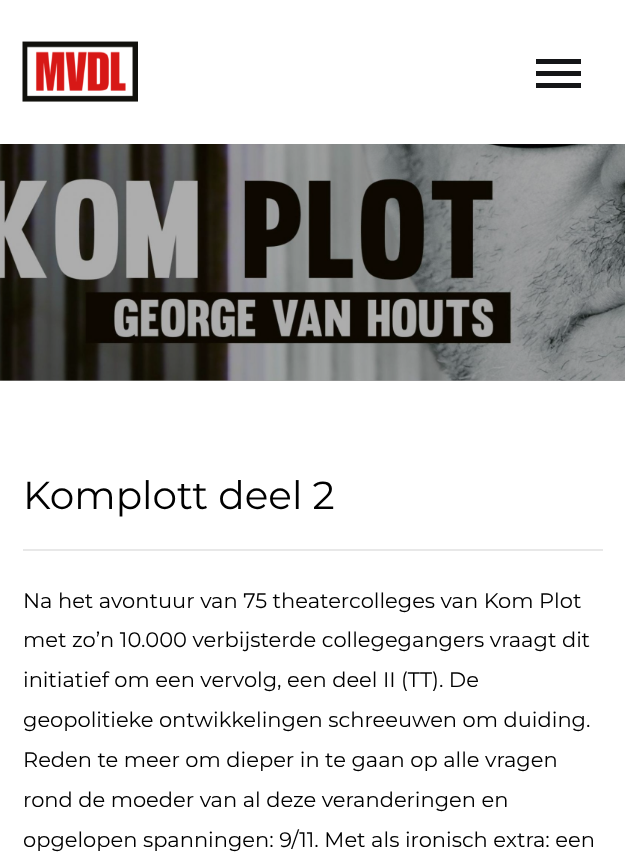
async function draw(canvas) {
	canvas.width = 625;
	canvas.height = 861;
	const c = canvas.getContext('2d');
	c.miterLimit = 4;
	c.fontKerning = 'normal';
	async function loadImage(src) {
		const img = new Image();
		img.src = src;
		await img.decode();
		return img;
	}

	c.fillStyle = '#fff';
	c.fillRect(0, 0, 625, 861);
	c.drawImage(await loadImage('img1.png'), 22, 41, 116, 61);
	for (const [x, y, w, h, color] of [
		[536, 59, 45, 5, '#141517'],
		[536, 71, 45, 5, '#141517'],
		[536, 83, 45, 5, '#141517'],
		[0, 380, 625, 1, '#a1a1a1'],
	]) {
		c.fillStyle = color;
		c.fillRect(x, y, w, h);
	}
	c.drawImage(await loadImage('img2.png'), 0, 144, 625, 237);
	c.font = '39px Montserrat';
	c.fillStyle = '#000';
	c.fillText('Komplott deel 2', 23, 509);
	c.fillStyle = '#e8e8e8';
	c.fillRect(23, 549, 580, 2);
	c.font = '21px Montserrat';
	c.fillStyle = '#000';
	for (const [text, x, y] of [
		['Na het avontuur van 75 theatercolleges van Kom Plot', 23, 608],
		['met zo’n 10.000 verbijsterde collegegangers vraagt dit', 23, 647],
		['initiatief om een vervolg, een deel II (TT). De', 23, 687],
		['geopolitieke ontwikkelingen schreeuwen om duiding.', 23, 727],
		['Reden te meer om dieper in te gaan op alle vragen', 23, 767],
		['rond de moeder van al deze veranderingen en', 23, 807],
		['opgelopen spanningen: 9/11. Met als ironisch extra: een', 23, 847],
	]) {
		c.fillText(text, x, y);
	}
}

draw(document.querySelector('canvas'));
